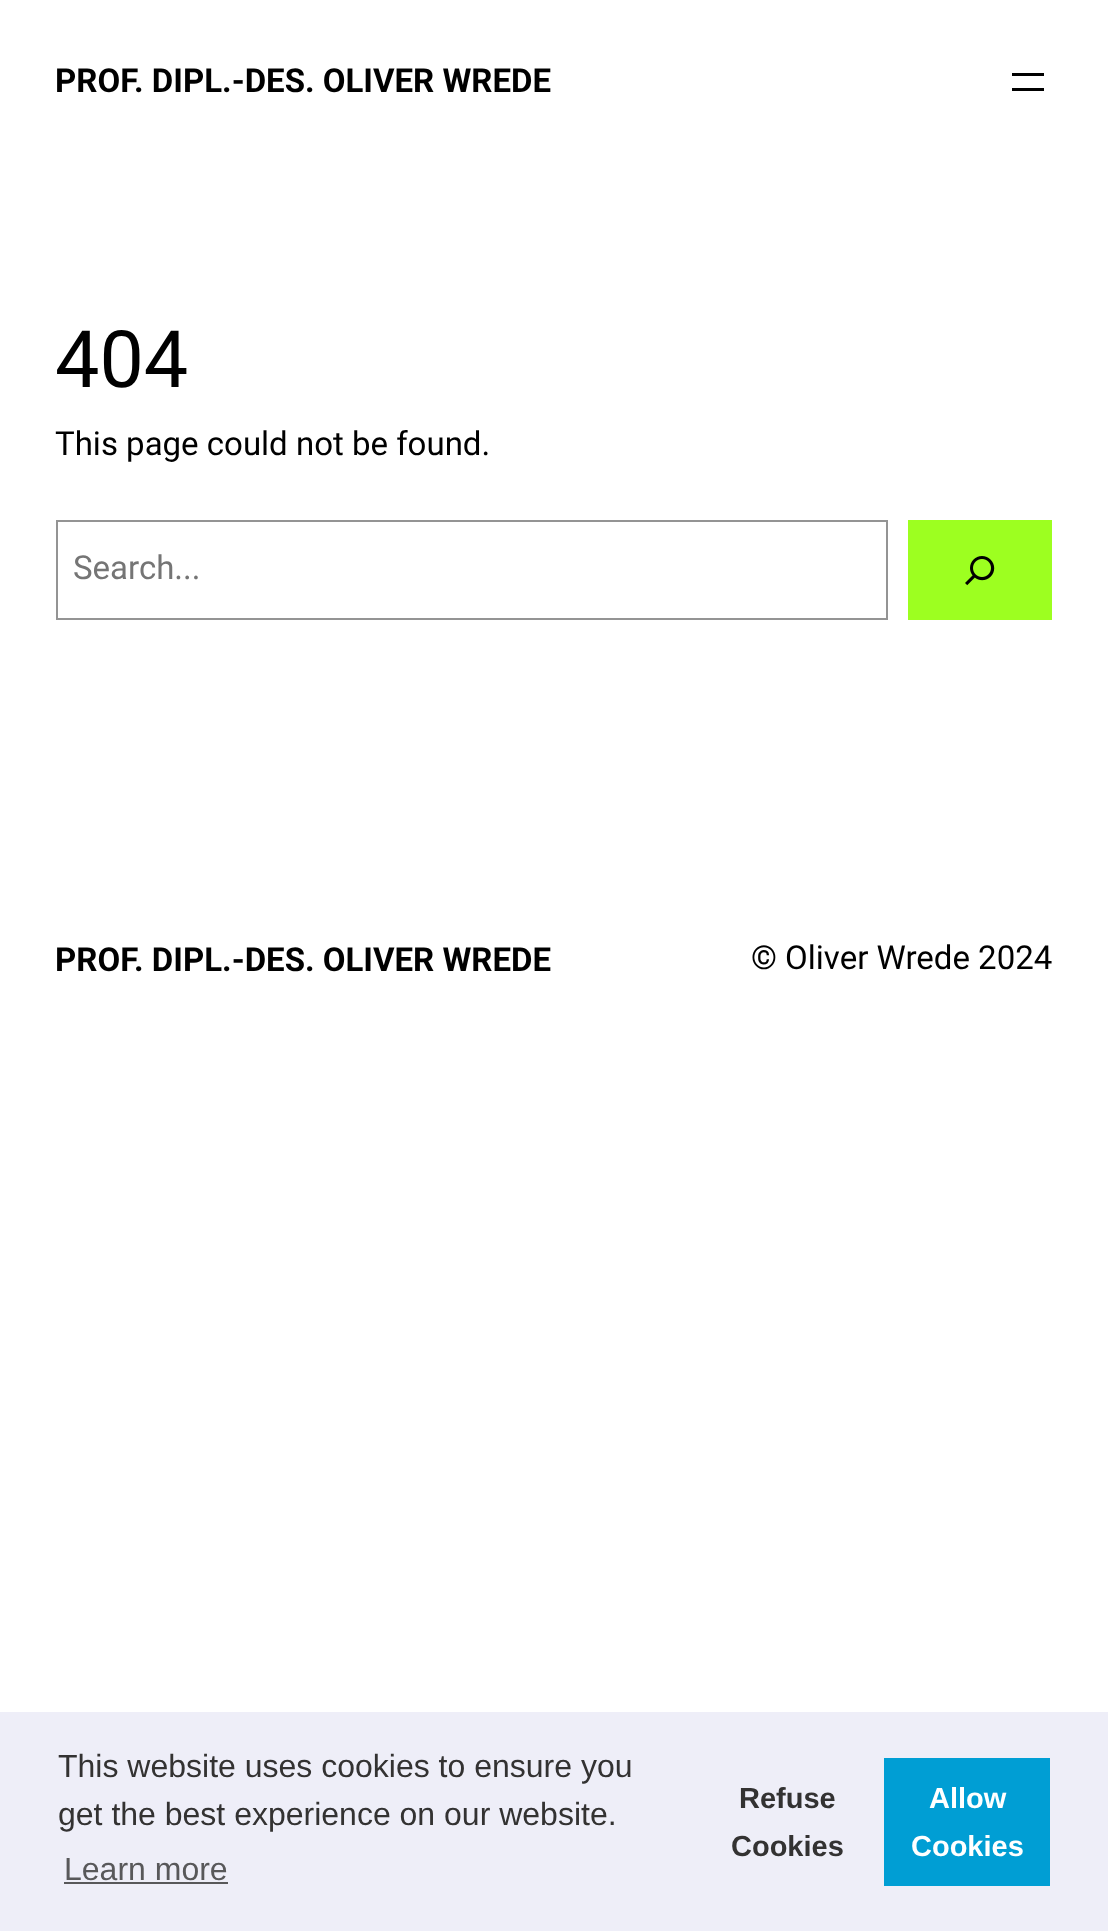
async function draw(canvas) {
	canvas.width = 1108;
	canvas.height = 1931;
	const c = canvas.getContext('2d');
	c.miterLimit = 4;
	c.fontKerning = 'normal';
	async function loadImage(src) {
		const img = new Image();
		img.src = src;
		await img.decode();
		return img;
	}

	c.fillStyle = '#fff';
	c.fillRect(0, 0, 1108, 1931);
	c.font = 'bold 33px Roboto';
	c.fillStyle = '#000';
	c.fillText('PROF. DIPL.-DES. OLIVER WREDE', 55, 92);
	c.fillRect(1012, 73, 32, 3);
	c.fillRect(1012, 88, 32, 3);
	c.font = '79px Roboto';
	c.fillText('404', 55, 387);
	c.font = '33px Roboto';
	c.fillText('This page could not be found.', 55, 455);
	c.strokeStyle = '#949494';
	c.lineWidth = 2;
	c.strokeRect(57, 521, 830, 98);
	c.fillStyle = '#757575';
	c.fillText('Search...', 73, 579);
	c.fillStyle = '#9dff20';
	c.fillRect(908, 520, 144, 100);
	c.drawImage(await loadImage('img1.png'), 965, 556, 30, 30);
	c.font = 'bold 33px Roboto';
	c.fillStyle = '#000';
	c.fillText('PROF. DIPL.-DES. OLIVER WREDE', 55, 971);
	c.font = '33px Roboto';
	c.fillText('© Oliver Wrede 2024', 751, 969);
	c.fillStyle = '#eeeef8';
	c.fillRect(0, 1712, 1108, 219);
	c.font = '32px Liberation Sans';
	c.fillStyle = '#333232';
	c.fillText('This website uses cookies to ensure you', 58, 1777);
	c.fillText('get the best experience on our website.', 58, 1825);
	c.fillStyle = '#58585a';
	c.fillText('Learn more', 64, 1880);
	c.fillRect(64, 1882, 164, 2);
	c.font = 'bold 29px Liberation Sans';
	c.fillStyle = '#333232';
	c.fillText('Refuse', 739, 1808);
	c.fillText('Cookies', 731, 1856);
	c.fillStyle = '#009ed4';
	c.fillRect(884, 1758, 166, 128);
	c.fillStyle = '#fff';
	c.fillText('Allow', 929, 1808);
	c.fillText('Cookies', 911, 1856);
}

draw(document.querySelector('canvas'));
